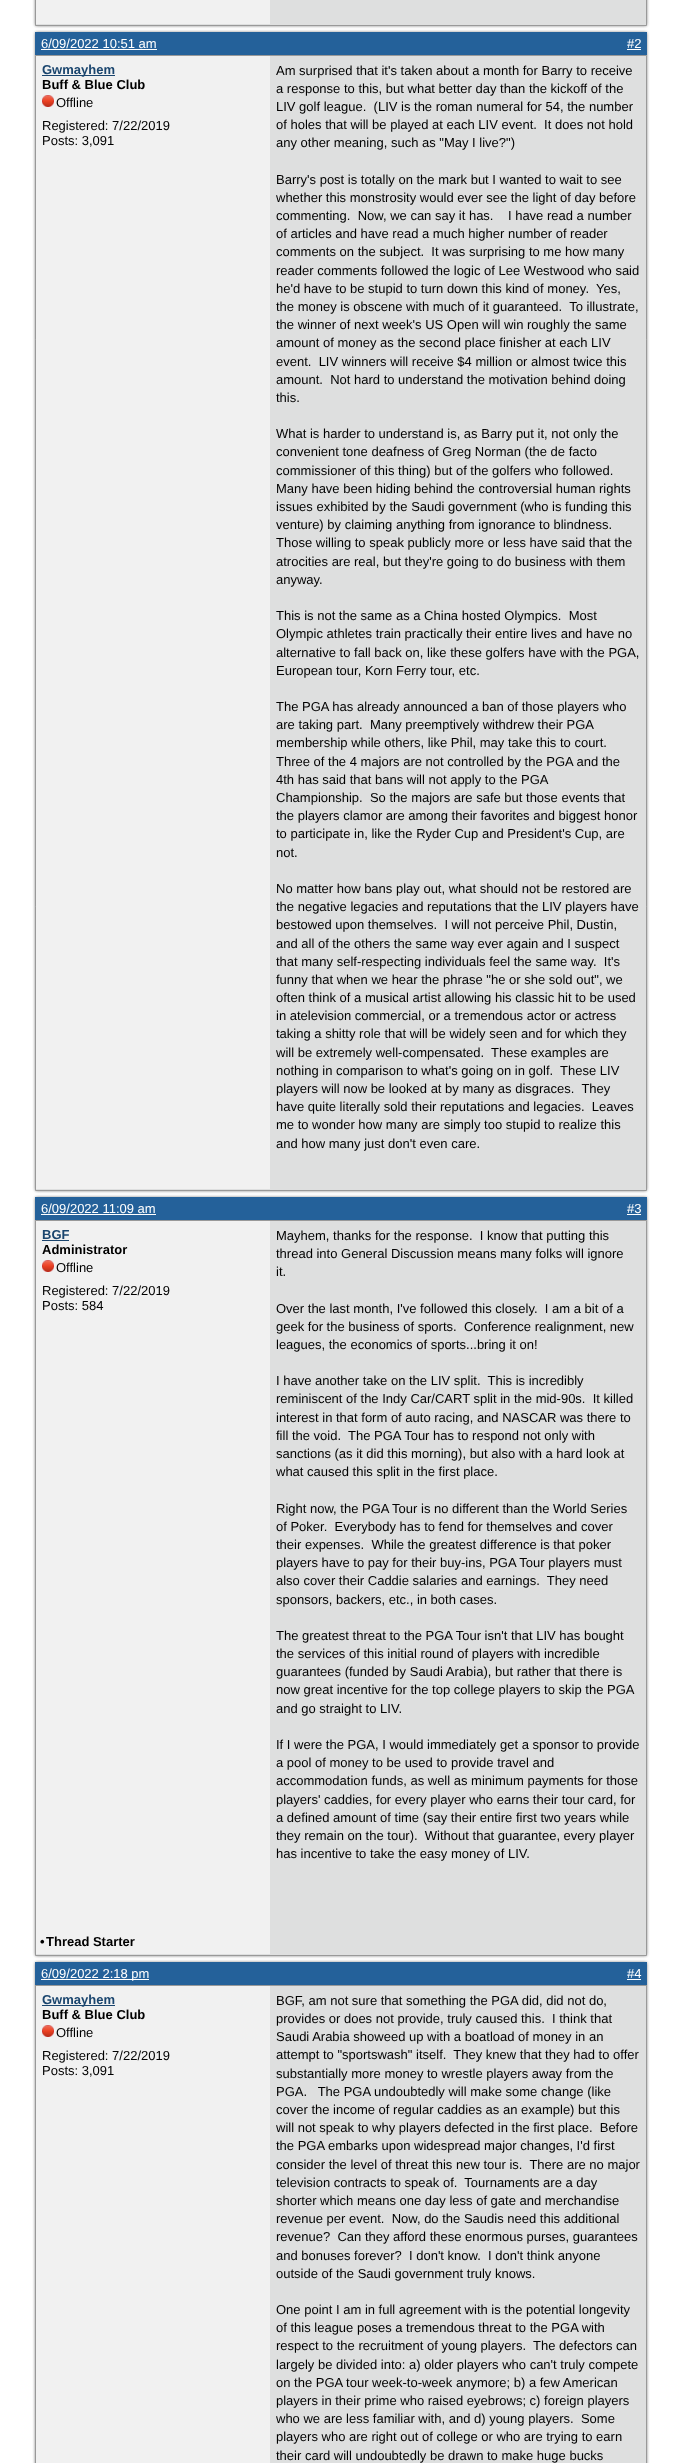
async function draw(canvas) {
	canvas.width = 682;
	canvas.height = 2463;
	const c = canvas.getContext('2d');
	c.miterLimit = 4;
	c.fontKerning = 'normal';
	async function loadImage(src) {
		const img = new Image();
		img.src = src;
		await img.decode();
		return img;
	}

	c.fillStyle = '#fff';
	c.fillRect(0, 0, 682, 2463);
	c.fillStyle = '#888';
	c.filter = 'blur(1.5px)';
	c.beginPath();
	c.roundRect(35, -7, 612, 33, 2);
	c.fill();
	c.filter = 'none';
	c.fillStyle = '#dedfdf';
	c.beginPath();
	c.rect(35.5, -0.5, 611, 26);
	c.fill();
	c.strokeStyle = '#999';
	c.stroke();
	c.fillStyle = '#f1f1f1';
	c.fillRect(36, 0, 234, 24);
	c.fillStyle = '#888';
	c.filter = 'blur(1.5px)';
	c.beginPath();
	c.roundRect(35, 32, 612, 1159, 2);
	c.fill();
	c.filter = 'none';
	c.fillStyle = '#24619a';
	c.fillRect(35, 32, 612, 23);
	c.font = '13px Liberation Sans';
	c.fillStyle = '#fff';
	c.fillText('6/09/2022 10:51 am', 41, 48);
	c.fillRect(41, 49, 116, 1);
	c.fillText('#2', 627, 48);
	c.fillRect(627, 49, 14, 1);
	c.fillStyle = '#dedfdf';
	c.beginPath();
	c.rect(35.5, 55.5, 611, 1135);
	c.fill();
	c.stroke();
	c.fillStyle = '#f1f1f1';
	c.fillRect(36, 56, 234, 1133);
	c.fillStyle = '#1a456e';
	c.fillRect(42, 75, 73, 1);
	c.font = 'bold 13px Liberation Sans';
	c.fillText('Gwmayhem', 42, 74);
	c.fillStyle = '#000';
	c.fillText('Buff & Blue Club', 42, 89);
	c.drawImage(await loadImage('img1.png'), 42, 95, 12, 12);
	c.font = '13px Liberation Sans';
	for (const [text, x, y] of [
		['Offline', 56, 107],
		['Registered: 7/22/2019', 42, 130],
		['Posts: 3,091', 42, 145],
		['Am surprised that it\'s taken about a month for Barry to receive', 276, 75],
		['a response to this, but what better day than the kickoff of the', 276, 93],
		['LIV golf league.  (LIV is the roman numeral for 54, the number', 276, 111],
		['of holes that will be played at each LIV event.  It does not hold', 276, 129],
		['any other meaning, such as "May I live?")', 276, 147],
		['Barry\'s post is totally on the mark but I wanted to wait to see', 276, 184],
		['whether this monstrosity would ever see the light of day before', 276, 202],
		['commenting.  Now, we can say it has.    I have read a number', 276, 220],
		['of articles and have read a much higher number of reader', 276, 238],
		['comments on the subject.  It was surprising to me how many', 276, 256],
		['reader comments followed the logic of Lee Westwood who said', 276, 275],
		['he\'d have to be stupid to turn down this kind of money.  Yes,', 276, 293],
		['the money is obscene with much of it guaranteed.  To illustrate,', 276, 311],
		['the winner of next week\'s US Open will win roughly the same', 276, 329],
		['amount of money as the second place finisher at each LIV', 276, 347],
		['event.  LIV winners will receive $4 million or almost twice this', 276, 366],
		['amount.  Not hard to understand the motivation behind doing', 276, 384],
		['this.', 276, 402],
		['What is harder to understand is, as Barry put it, not only the', 276, 438],
		['convenient tone deafness of Greg Norman (the de facto', 276, 456],
		['commissioner of this thing) but of the golfers who followed.', 276, 475],
		['Many have been hiding behind the controversial human rights', 276, 493],
		['issues exhibited by the Saudi government (who is funding this', 276, 511],
		['venture) by claiming anything from ignorance to blindness.', 276, 529],
		['Those willing to speak publicly more or less have said that the', 276, 547],
		['atrocities are real, but they\'re going to do business with them', 276, 566],
		['anyway.', 276, 584],
		['This is not the same as a China hosted Olympics.  Most', 276, 620],
		['Olympic athletes train practically their entire lives and have no', 276, 638],
		['alternative to fall back on, like these golfers have with the PGA,', 276, 657],
		['European tour, Korn Ferry tour, etc.', 276, 675],
		['The PGA has already announced a ban of those players who', 276, 711],
		['are taking part.  Many preemptively withdrew their PGA', 276, 729],
		['membership while others, like Phil, may take this to court.', 276, 747],
		['Three of the 4 majors are not controlled by the PGA and the', 276, 766],
		['4th has said that bans will not apply to the PGA', 276, 784],
		['Championship.  So the majors are safe but those events that', 276, 802],
		['the players clamor are among their favorites and biggest honor', 276, 820],
		['to participate in, like the Ryder Cup and President\'s Cup, are', 276, 838],
		['not.', 276, 857],
		['No matter how bans play out, what should not be restored are', 276, 893],
		['the negative legacies and reputations that the LIV players have', 276, 911],
		['bestowed upon themselves.  I will not perceive Phil, Dustin,', 276, 929],
		['and all of the others the same way ever again and I suspect', 276, 948],
		['that many self-respecting individuals feel the same way.  It\'s', 276, 966],
		['funny that when we hear the phrase "he or she sold out", we', 276, 984],
		['often think of a musical artist allowing his classic hit to be used', 276, 1002],
		['in atelevision commercial, or a tremendous actor or actress', 276, 1020],
		['taking a shitty role that will be widely seen and for which they', 276, 1038],
		['will be extremely well-compensated.  These examples are', 276, 1057],
		['nothing in comparison to what\'s going on in golf.  These LIV', 276, 1075],
		['players will now be looked at by many as disgraces.  They', 276, 1093],
		['have quite literally sold their reputations and legacies.  Leaves', 276, 1111],
		['me to wonder how many are simply too stupid to realize this', 276, 1129],
		['and how many just don\'t even care.', 276, 1148],
	]) {
		c.fillText(text, x, y);
	}
	c.fillStyle = '#888';
	c.filter = 'blur(1.5px)';
	c.beginPath();
	c.roundRect(35, 1197, 612, 759, 2);
	c.fill();
	c.filter = 'none';
	c.fillStyle = '#24619a';
	c.fillRect(35, 1197, 612, 23);
	c.fillStyle = '#fff';
	c.fillText('6/09/2022 11:09 am', 41, 1213);
	c.fillRect(41, 1214, 115, 1);
	c.fillText('#3', 627, 1213);
	c.fillRect(627, 1214, 14, 1);
	c.fillStyle = '#dedfdf';
	c.beginPath();
	c.rect(35.5, 1220.5, 611, 735);
	c.fill();
	c.stroke();
	c.fillStyle = '#f1f1f1';
	c.fillRect(36, 1221, 234, 733);
	c.font = 'bold 13px Liberation Sans';
	c.fillStyle = '#1a456e';
	c.fillText('BGF', 42, 1239);
	c.fillRect(42, 1240, 27, 1);
	c.fillStyle = '#000';
	c.fillText('Administrator', 42, 1254);
	c.drawImage(await loadImage('img1.png'), 42, 1260, 12, 12);
	c.font = '13px Liberation Sans';
	for (const [text, x, y] of [
		['Offline', 56, 1272],
		['Registered: 7/22/2019', 42, 1295],
		['Posts: 584', 42, 1310],
		['Mayhem, thanks for the response.  I know that putting this', 276, 1240],
		['thread into General Discussion means many folks will ignore', 276, 1258],
		['it.', 276, 1276],
		['Over the last month, I\'ve followed this closely.  I am a bit of a', 276, 1313],
		['geek for the business of sports.  Conference realignment, new', 276, 1331],
		['leagues, the economics of sports...bring it on!', 276, 1349],
		['I have another take on the LIV split.  This is incredibly', 276, 1385],
		['reminiscent of the Indy Car/CART split in the mid-90s.  It killed', 276, 1403],
		['interest in that form of auto racing, and NASCAR was there to', 276, 1422],
		['fill the void.  The PGA Tour has to respond not only with', 276, 1440],
		['sanctions (as it did this morning), but also with a hard look at', 276, 1458],
		['what caused this split in the first place.', 276, 1476],
		['Right now, the PGA Tour is no different than the World Series', 276, 1513],
		['of Poker.  Everybody has to fend for themselves and cover', 276, 1531],
		['their expenses.  While the greatest difference is that poker', 276, 1549],
		['players have to pay for their buy-ins, PGA Tour players must', 276, 1567],
		['also cover their Caddie salaries and earnings.  They need', 276, 1585],
		['sponsors, backers, etc., in both cases.', 276, 1604],
		['The greatest threat to the PGA Tour isn\'t that LIV has bought', 276, 1640],
		['the services of this initial round of players with incredible', 276, 1658],
		['guarantees (funded by Saudi Arabia), but rather that there is', 276, 1676],
		['now great incentive for the top college players to skip the PGA', 276, 1694],
		['and go straight to LIV.', 276, 1713],
		['If I were the PGA, I would immediately get a sponsor to provide', 276, 1749],
		['a pool of money to be used to provide travel and', 276, 1767],
		['accommodation funds, as well as minimum payments for those', 276, 1785],
		['players\' caddies, for every player who earns their tour card, for', 276, 1804],
		['a defined amount of time (say their entire first two years while', 276, 1822],
		['they remain on the tour).  Without that guarantee, every player', 276, 1840],
		['has incentive to take the easy money of LIV.', 276, 1858],
	]) {
		c.fillText(text, x, y);
	}
	c.font = 'bold 13px Liberation Sans';
	c.fillText('•', 40, 1946);
	c.fillText('Thread Starter', 46, 1946);
	c.fillStyle = '#888';
	c.filter = 'blur(1.5px)';
	c.beginPath();
	c.roundRect(35, 1962, 612, 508, 2);
	c.fill();
	c.filter = 'none';
	c.fillStyle = '#24619a';
	c.fillRect(35, 1962, 612, 23);
	c.fillStyle = '#fff';
	c.fillRect(41, 1979, 108, 1);
	c.font = '13px Liberation Sans';
	c.fillText('6/09/2022 2:18 pm', 41, 1978);
	c.fillText('#4', 627, 1978);
	c.fillRect(627, 1979, 14, 1);
	c.fillStyle = '#dedfdf';
	c.fillRect(270, 1986, 376, 477);
	c.strokeRect(35.5, 1985.5, 611, 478);
	c.fillStyle = '#f1f1f1';
	c.fillRect(36, 1986, 234, 477);
	c.fillStyle = '#1a456e';
	c.fillRect(42, 2005, 73, 1);
	c.font = 'bold 13px Liberation Sans';
	c.fillText('Gwmayhem', 42, 2004);
	c.fillStyle = '#000';
	c.fillText('Buff & Blue Club', 42, 2019);
	c.drawImage(await loadImage('img1.png'), 42, 2025, 12, 12);
	c.font = '13px Liberation Sans';
	for (const [text, x, y] of [
		['Offline', 56, 2037],
		['Registered: 7/22/2019', 42, 2060],
		['Posts: 3,091', 42, 2075],
		['BGF, am not sure that something the PGA did, did not do,', 276, 2005],
		['provides or does not provide, truly caused this.  I think that', 276, 2023],
		['Saudi Arabia showeed up with a boatload of money in an', 276, 2041],
		['attempt to "sportswash" itself.  They knew that they had to offer', 276, 2059],
		['substantially more money to wrestle players away from the', 276, 2078],
		['PGA.   The PGA undoubtedly will make some change (like', 276, 2096],
		['cover the income of regular caddies as an example) but this', 276, 2114],
		['will not speak to why players defected in the first place.  Before', 276, 2132],
		['the PGA embarks upon widespread major changes, I\'d first', 276, 2150],
		['consider the level of threat this new tour is.  There are no major', 276, 2169],
		['television contracts to speak of.  Tournaments are a day', 276, 2187],
		['shorter which means one day less of gate and merchandise', 276, 2205],
		['revenue per event.  Now, do the Saudis need this additional', 276, 2223],
		['revenue?  Can they afford these enormous purses, guarantees', 276, 2241],
		['and bonuses forever?  I don\'t know.  I don\'t think anyone', 276, 2260],
		['outside of the Saudi government truly knows.', 276, 2278],
		['One point I am in full agreement with is the potential longevity', 276, 2314],
		['of this league poses a tremendous threat to the PGA with', 276, 2332],
		['respect to the recruitment of young players.  The defectors can', 276, 2350],
		['largely be divided into: a) older players who can\'t truly compete', 276, 2369],
		['on the PGA tour week-to-week anymore; b) a few American', 276, 2387],
		['players in their prime who raised eyebrows; c) foreign players', 276, 2405],
		['who we are less familiar with, and d) young players.  Some', 276, 2423],
		['players who are right out of college or who are trying to earn', 276, 2441],
		['their card will undoubtedly be drawn to make huge bucks', 276, 2460],
	]) {
		c.fillText(text, x, y);
	}
}

draw(document.querySelector('canvas'));
